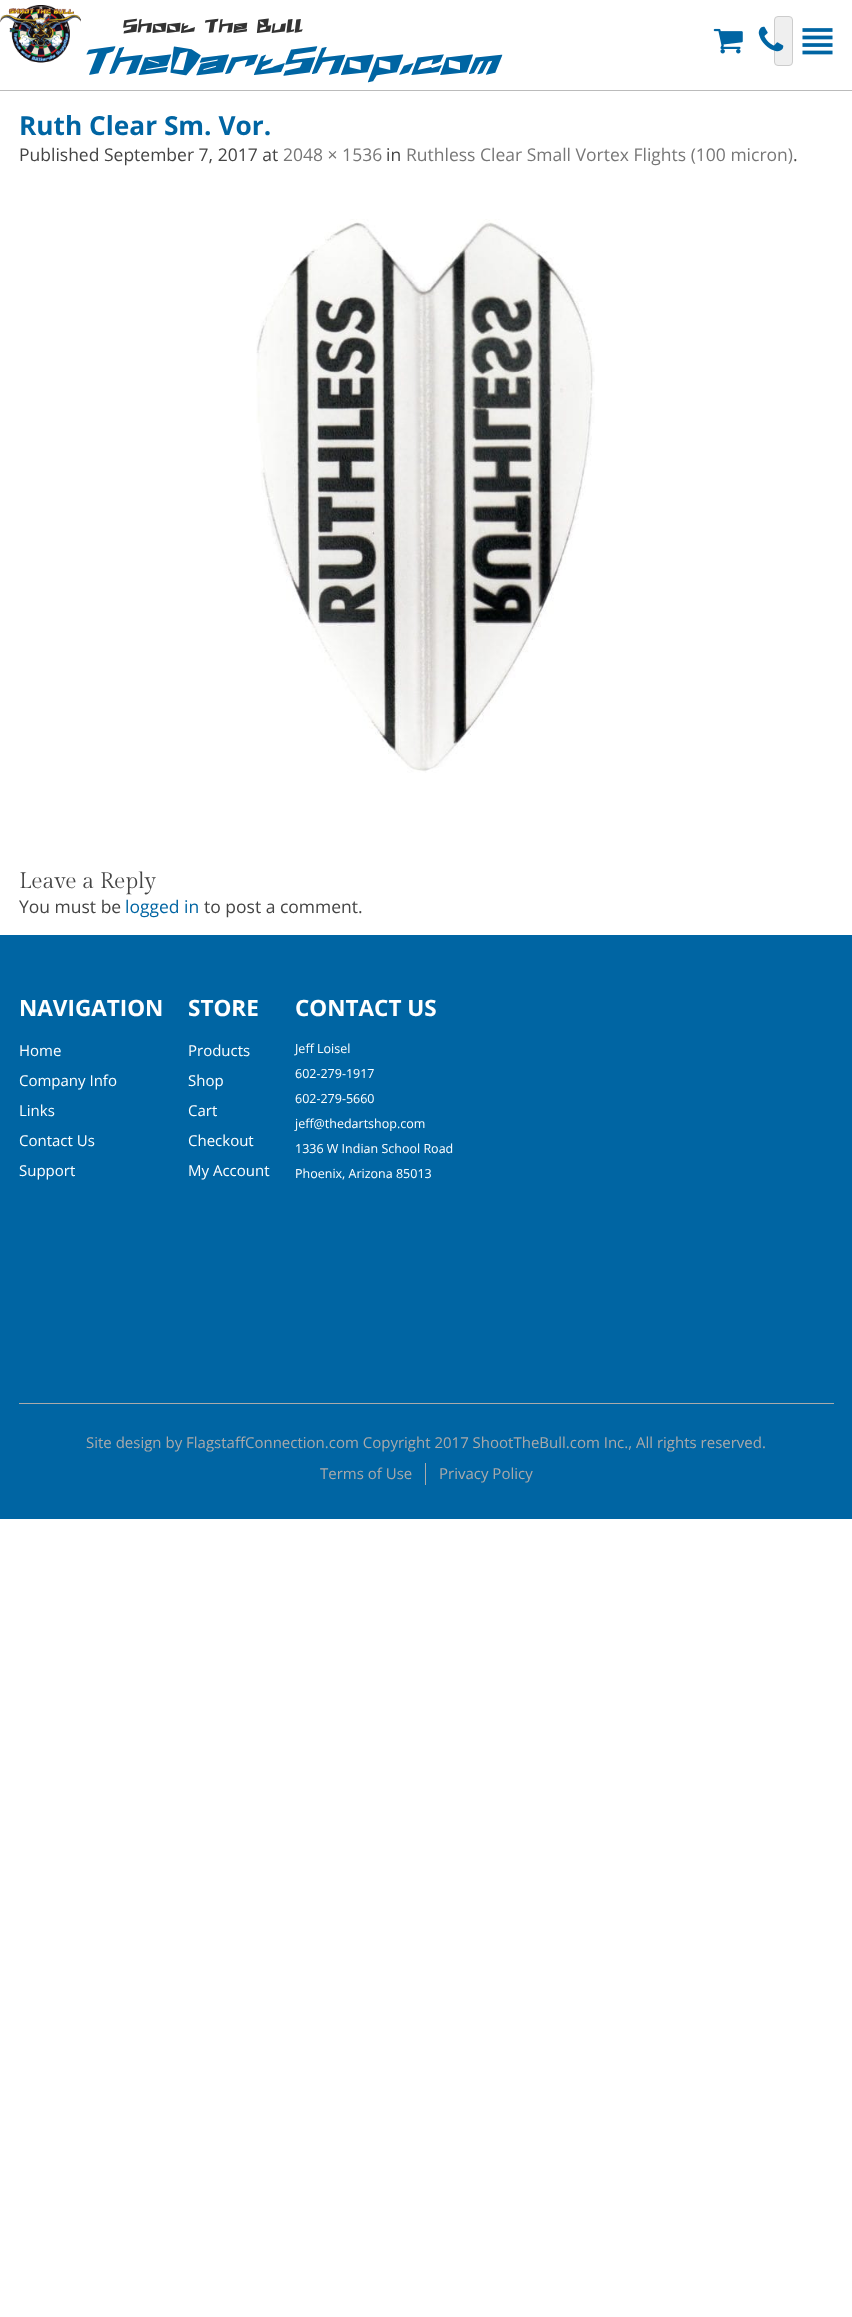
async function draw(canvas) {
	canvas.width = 852;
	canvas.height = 2317;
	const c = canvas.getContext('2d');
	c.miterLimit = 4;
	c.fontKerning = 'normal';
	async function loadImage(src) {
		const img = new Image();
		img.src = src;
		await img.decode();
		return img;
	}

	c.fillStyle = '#fff';
	c.fillRect(0, 0, 852, 2317);
	c.fillStyle = '#bbb';
	c.fillRect(0, 90, 852, 1);
	c.drawImage(await loadImage('img1.png'), 0, 5, 81, 58);
	c.font = '18.75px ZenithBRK';
	c.fillStyle = '#333';
	c.fillText('Shoot The Bull', 123, 33);
	c.font = 'italic 37.5px ZenithBRK';
	c.fillStyle = '#0065a3';
	c.fillText('TheDartShop.com', 81, 75);
	c.drawImage(await loadImage('img2.png'), 713, 28, 30, 26);
	c.fillStyle = '#efefef';
	c.beginPath();
	c.roundRect(774.5, 16.5, 18, 49, 3.5);
	c.fill();
	c.strokeStyle = '#ccc';
	c.stroke();
	c.drawImage(await loadImage('img3.png'), 758, 26, 26, 26);
	c.drawImage(await loadImage('img4.png'), 802, 28, 31, 27);
	c.font = 'bold 26.25px Open Sans';
	c.fillStyle = '#0065a3';
	c.fillText('Ruth Clear Sm. Vor.', 19, 135);
	c.font = '17.5px Open Sans';
	c.fillStyle = '#444';
	c.fillText('Published September 7, 2017 at', 19, 161);
	c.fillStyle = '#777';
	c.fillText('2048 × 1536', 283, 161);
	c.fillStyle = '#444';
	c.fillText('in', 386, 161);
	c.fillStyle = '#777';
	c.fillText('Ruthless Clear Small Vortex Flights (100 micron)', 406, 161);
	c.fillStyle = '#444';
	c.fillText('.', 793, 161);
	c.drawImage(await loadImage('img5.png'), 256, 219, 339, 554);
	c.font = '22.5px Gilda Display';
	c.fillText('Leave a Reply', 19, 888);
	c.font = '17.5px Open Sans';
	c.fillText('You must be', 19, 913);
	c.fillStyle = '#0065a3';
	c.fillText('logged in', 125, 913);
	c.fillStyle = '#444';
	c.fillText('to post a comment.', 204, 913);
	c.fillStyle = '#0065a3';
	c.fillRect(0, 935, 852, 584);
	c.font = 'bold 22.5px Open Sans';
	c.fillStyle = '#fff';
	c.fillText('NAVIGATION', 19, 1016);
	c.font = '15px Open Sans';
	for (const [text, x, y] of [
		['Home', 19, 1056],
		['Company Info', 19, 1086],
		['Links', 19, 1116],
		['Contact Us', 19, 1146],
		['Support', 19, 1176],
	]) {
		c.fillText(text, x, y);
	}
	c.font = 'bold 22.5px Open Sans';
	c.fillText('STORE', 188, 1016);
	c.font = '15px Open Sans';
	for (const [text, x, y] of [
		['Products', 188, 1056],
		['Shop', 188, 1086],
		['Cart', 188, 1116],
		['Checkout', 188, 1146],
		['My Account', 188, 1176],
	]) {
		c.fillText(text, x, y);
	}
	c.font = 'bold 22.5px Open Sans';
	c.fillText('CONTACT US', 295, 1016);
	c.font = '12.5px Open Sans';
	for (const [text, x, y] of [
		['Jeff Loisel', 295, 1053],
		['602-279-1917', 295, 1078],
		['602-279-5660', 295, 1103],
		['jeff@thedartshop.com', 295, 1128],
		['1336 W Indian School Road', 295, 1153],
		['Phoenix, Arizona 85013', 295, 1178],
	]) {
		c.fillText(text, x, y);
	}
	c.fillStyle = '#aaa';
	c.fillRect(19, 1403, 815, 1);
	c.font = '15px Open Sans';
	c.fillText('Site design by FlagstaffConnection.com Copyright 2017 ShootTheBull.com Inc., All rights reserved.', 86, 1448);
	c.fillText('Terms of Use', 320, 1479);
	c.fillRect(425, 1463, 1, 22);
	c.fillText('Privacy Policy', 439, 1479);
}

draw(document.querySelector('canvas'));
